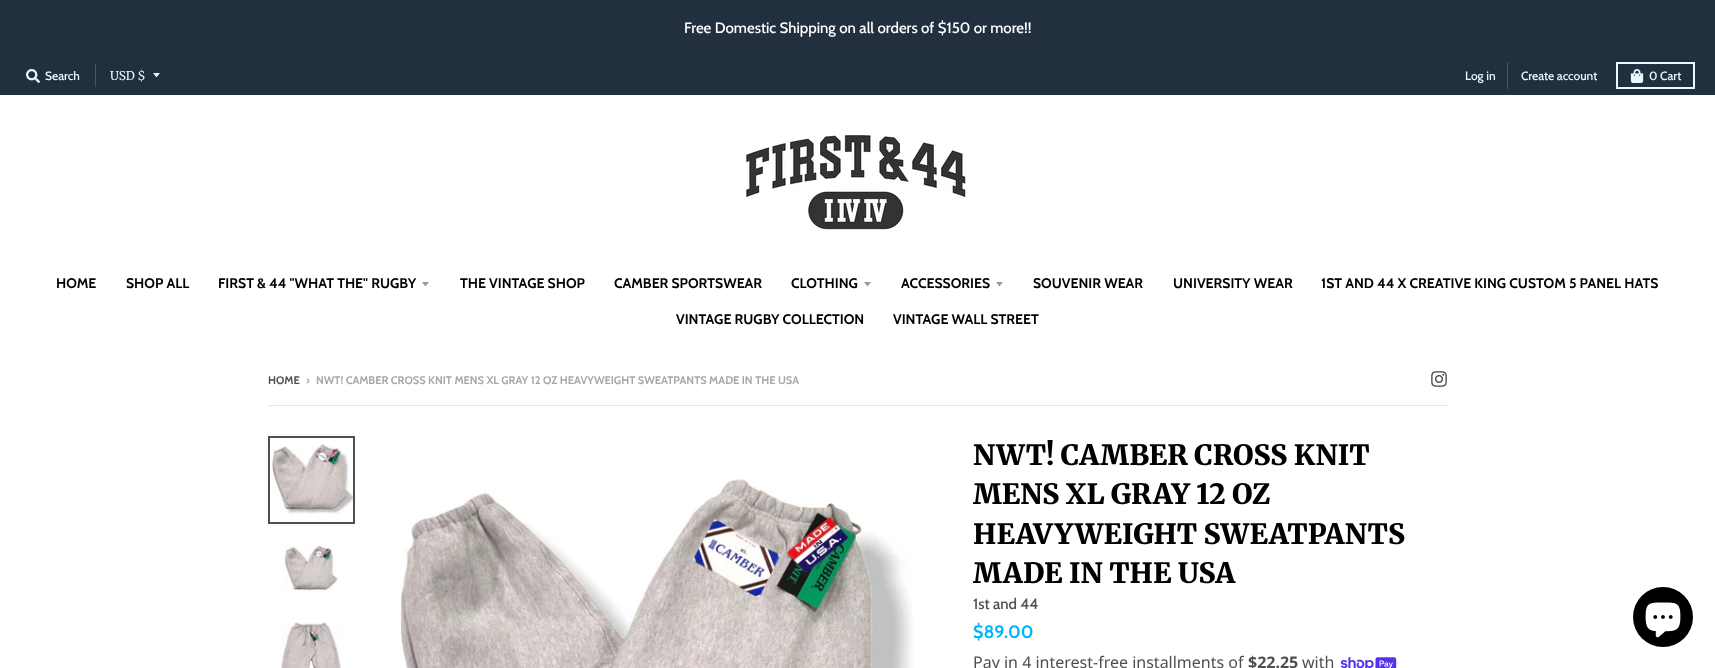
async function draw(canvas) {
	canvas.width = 1715;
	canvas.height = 668;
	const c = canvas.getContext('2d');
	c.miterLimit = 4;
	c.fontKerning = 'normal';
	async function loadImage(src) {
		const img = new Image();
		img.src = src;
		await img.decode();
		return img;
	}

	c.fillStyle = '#fff';
	c.fillRect(0, 0, 1715, 668);
	c.fillStyle = '#222f3e';
	c.fillRect(0, 0, 1715, 95);
	c.font = '500 15px Cabin';
	c.fillStyle = '#fff';
	c.fillText('Free Domestic Shipping on all orders of $150 or more!!', 684, 33);
	c.drawImage(await loadImage('img1.png'), 26, 69, 14, 14);
	c.font = '500 12px Cabin';
	c.fillStyle = '#e9f9ff';
	c.fillText('Search', 45, 80);
	c.fillStyle = '#495764';
	c.fillRect(95, 64, 1, 23);
	c.fillStyle = '#e9f9ff';
	c.beginPath();
	c.moveTo(153, 73);
	c.bezierCurveTo(157.5, 78.5, 155.5, 78.5, 160, 73);
	c.closePath();
	c.fill();
	c.font = '12px Merriweather';
	c.fillText('USD $', 110, 80);
	c.fillStyle = '#495764';
	c.fillRect(1507, 62, 1, 27);
	c.font = '500 12px Cabin';
	c.fillStyle = '#e9f9ff';
	c.fillText('Log in', 1465, 80);
	c.fillText('Create account', 1521, 80);
	c.strokeStyle = '#e9f9ff';
	c.lineWidth = 2;
	c.strokeRect(1617, 63, 77, 25);
	c.drawImage(await loadImage('img2.png'), 1630, 69, 14, 14);
	c.fillText('0 Cart', 1649, 80);
	c.drawImage(await loadImage('img3.png'), 744, 135, 224, 96);
	c.font = 'bold 14px Cabin';
	c.fillStyle = '#000';
	for (const [text, x, y] of [
		['HOME', 56, 288],
		['SHOP ALL', 126, 288],
		['FIRST & 44 "WHAT THE" RUGBY', 218, 288],
	]) {
		c.fillText(text, x, y);
	}
	c.fillStyle = '#999';
	c.beginPath();
	c.moveTo(422, 282);
	c.bezierCurveTo(426.5, 287.5, 424.5, 287.5, 429, 282);
	c.closePath();
	c.fill();
	c.fillStyle = '#000';
	for (const [text, x, y] of [
		['THE VINTAGE SHOP', 460, 288],
		['CAMBER SPORTSWEAR', 614, 288],
		['CLOTHING', 791, 288],
	]) {
		c.fillText(text, x, y);
	}
	c.fillStyle = '#999';
	c.beginPath();
	c.moveTo(864, 282);
	c.bezierCurveTo(868.5, 287.5, 866.5, 287.5, 871, 282);
	c.closePath();
	c.fill();
	c.fillStyle = '#000';
	c.fillText('ACCESSORIES', 901, 288);
	c.fillStyle = '#999';
	c.beginPath();
	c.moveTo(996, 282);
	c.bezierCurveTo(1000.5, 287.5, 998.5, 287.5, 1003, 282);
	c.closePath();
	c.fill();
	c.fillStyle = '#000';
	for (const [text, x, y] of [
		['SOUVENIR WEAR', 1033, 288],
		['UNIVERSITY WEAR', 1173, 288],
		['1ST AND 44 X CREATIVE KING CUSTOM 5 PANEL HATS', 1321, 288],
		['VINTAGE RUGBY COLLECTION', 676, 324],
		['VINTAGE WALL STREET', 893, 324],
	]) {
		c.fillText(text, x, y);
	}
	c.font = 'bold 11px Cabin';
	c.fillStyle = '#4f4f4f';
	c.fillText('HOME', 268, 384);
	c.fillStyle = '#a7a7a7';
	c.fillText('›', 306, 384);
	c.fillText('NWT! CAMBER CROSS KNIT MENS XL GRAY 12 OZ HEAVYWEIGHT SWEATPANTS MADE IN THE USA', 316, 384);
	c.drawImage(await loadImage('img4.png'), 1431, 371, 16, 16);
	c.fillStyle = '#e5e5e5';
	c.fillRect(268, 405, 1180, 1);
	c.strokeStyle = '#4f4f4f';
	c.strokeRect(269, 437, 85, 86);
	c.drawImage(await loadImage('img5.png'), 271, 444, 82, 70);
	c.drawImage(await loadImage('img6.png'), 283, 545, 56, 48);
	c.drawImage(await loadImage('img7.png'), 280, 622, 62, 46);
	c.drawImage(await loadImage('img8.png'), 400, 478, 514, 190);
	c.font = '900 28px Merriweather';
	c.fillStyle = '#000';
	for (const [text, x, y] of [
		['NWT! CAMBER CROSS KNIT', 973, 465],
		['MENS XL GRAY 12 OZ', 973, 504],
		['HEAVYWEIGHT SWEATPANTS', 973, 544],
		['MADE IN THE USA', 973, 583],
	]) {
		c.fillText(text, x, y);
	}
	c.font = '500 15px Cabin';
	c.fillStyle = '#4f4f4f';
	c.fillText('1st and 44', 973, 609);
	c.font = 'bold 18px Cabin';
	c.fillStyle = '#00b5ff';
	c.fillText('$89.00', 973, 638);
	c.font = '16px Noto Sans';
	c.fillStyle = '#4f4f4f';
	c.fillText('Pay in 4 interest-free installments of', 973, 668);
	c.font = 'bold 16px Noto Sans';
	c.fillText('$22.25', 1248, 668);
	c.font = '16px Noto Sans';
	c.fillText('with', 1302, 668);
	c.drawImage(await loadImage('img9.png'), 1340, 657, 57, 11);
	c.fillStyle = '#000';
	c.beginPath();
	c.arc(1663, 617, 30, 0, 2 * Math.PI);
	c.fill();
	c.drawImage(await loadImage('img10.png'), 1645, 602, 36, 36);
}

draw(document.querySelector('canvas'));
